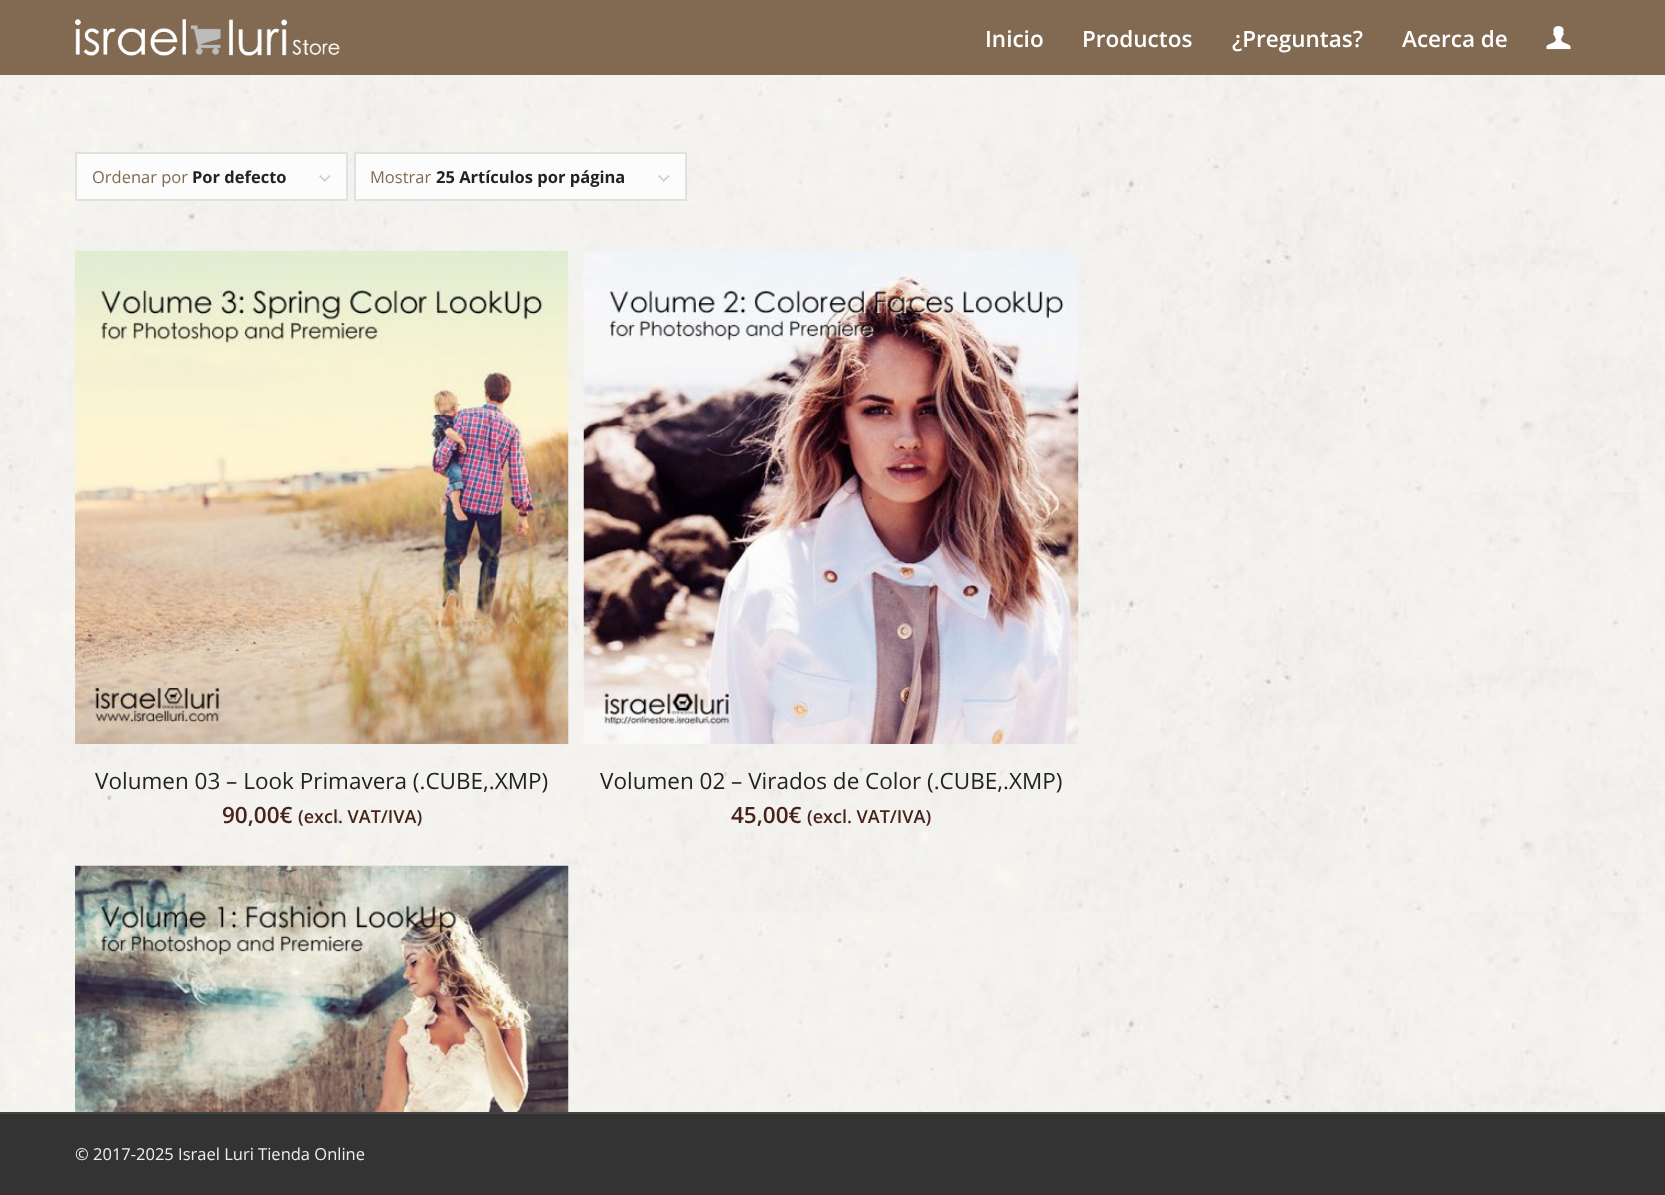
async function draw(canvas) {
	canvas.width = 1665;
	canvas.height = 1195;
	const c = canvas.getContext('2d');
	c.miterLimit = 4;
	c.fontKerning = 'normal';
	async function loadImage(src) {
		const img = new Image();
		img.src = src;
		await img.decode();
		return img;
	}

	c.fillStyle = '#fff';
	c.fillRect(0, 0, 1665, 1195);
	c.fillStyle = '#816a51';
	c.fillRect(0, 0, 1665, 75);
	c.drawImage(await loadImage('img1.png'), 75, 19, 265, 37);
	c.font = '600 22.5px Open Sans';
	c.fillStyle = '#fff';
	for (const [text, x, y] of [
		['Inicio', 985, 47],
		['Productos', 1082, 47],
		['¿Preguntas?', 1232, 47],
		['Acerca de', 1402, 47],
	]) {
		c.fillText(text, x, y);
	}
	c.drawImage(await loadImage('img2.png'), 1546, 26, 25, 24);
	c.drawImage(await loadImage('img3.png'), 0, 75, 1665, 1037);
	c.fillStyle = '#fcfcfc';
	c.fillRect(77, 154, 269, 45);
	c.drawImage(await loadImage('img4.png'), 319, 175, 12, 7);
	c.strokeStyle = '#e1e1e1';
	c.lineWidth = 2;
	c.strokeRect(76, 153, 271, 47);
	c.font = '16.5px Open Sans';
	c.fillStyle = '#816a51';
	c.fillText('Ordenar por', 92, 183);
	c.font = 'bold 16.5px Open Sans';
	c.fillStyle = '#222';
	c.fillText('Por defecto', 192, 183);
	c.fillStyle = '#fcfcfc';
	c.fillRect(356, 154, 329, 45);
	c.drawImage(await loadImage('img4.png'), 658, 175, 12, 7);
	c.strokeRect(355, 153, 331, 47);
	c.font = '16.5px Open Sans';
	c.fillStyle = '#816a51';
	c.fillText('Mostrar', 370, 183);
	c.font = 'bold 16.5px Open Sans';
	c.fillStyle = '#222';
	c.fillText('25 Artículos por página', 436, 183);
	c.drawImage(await loadImage('img5.png'), 75, 250, 494, 494);
	c.font = '22.5px Open Sans';
	c.fillText('Volumen 03 – Look Primavera (.CUBE,.XMP)', 95, 789);
	c.font = '600 22.5px Open Sans';
	c.fillStyle = '#48231d';
	c.fillText('90,00€', 222, 823);
	c.font = '600 18px Open Sans';
	c.fillText('(excl. VAT/IVA)', 298, 823);
	c.drawImage(await loadImage('img6.png'), 583, 250, 496, 494);
	c.font = '22.5px Open Sans';
	c.fillStyle = '#222';
	c.fillText('Volumen 02 – Virados de Color (.CUBE,.XMP)', 600, 789);
	c.font = '600 22.5px Open Sans';
	c.fillStyle = '#48231d';
	c.fillText('45,00€', 731, 823);
	c.font = '600 18px Open Sans';
	c.fillText('(excl. VAT/IVA)', 807, 823);
	c.drawImage(await loadImage('img7.png'), 75, 865, 494, 247);
	c.fillStyle = '#333';
	c.fillRect(0, 1114, 1665, 81);
	c.fillStyle = '#444';
	c.fillRect(0, 1112, 1665, 2);
	c.font = '16.5px Open Sans';
	c.fillStyle = '#eee';
	c.fillText('© 2017-2025 Israel Luri Tienda Online', 75, 1160);
}

draw(document.querySelector('canvas'));
